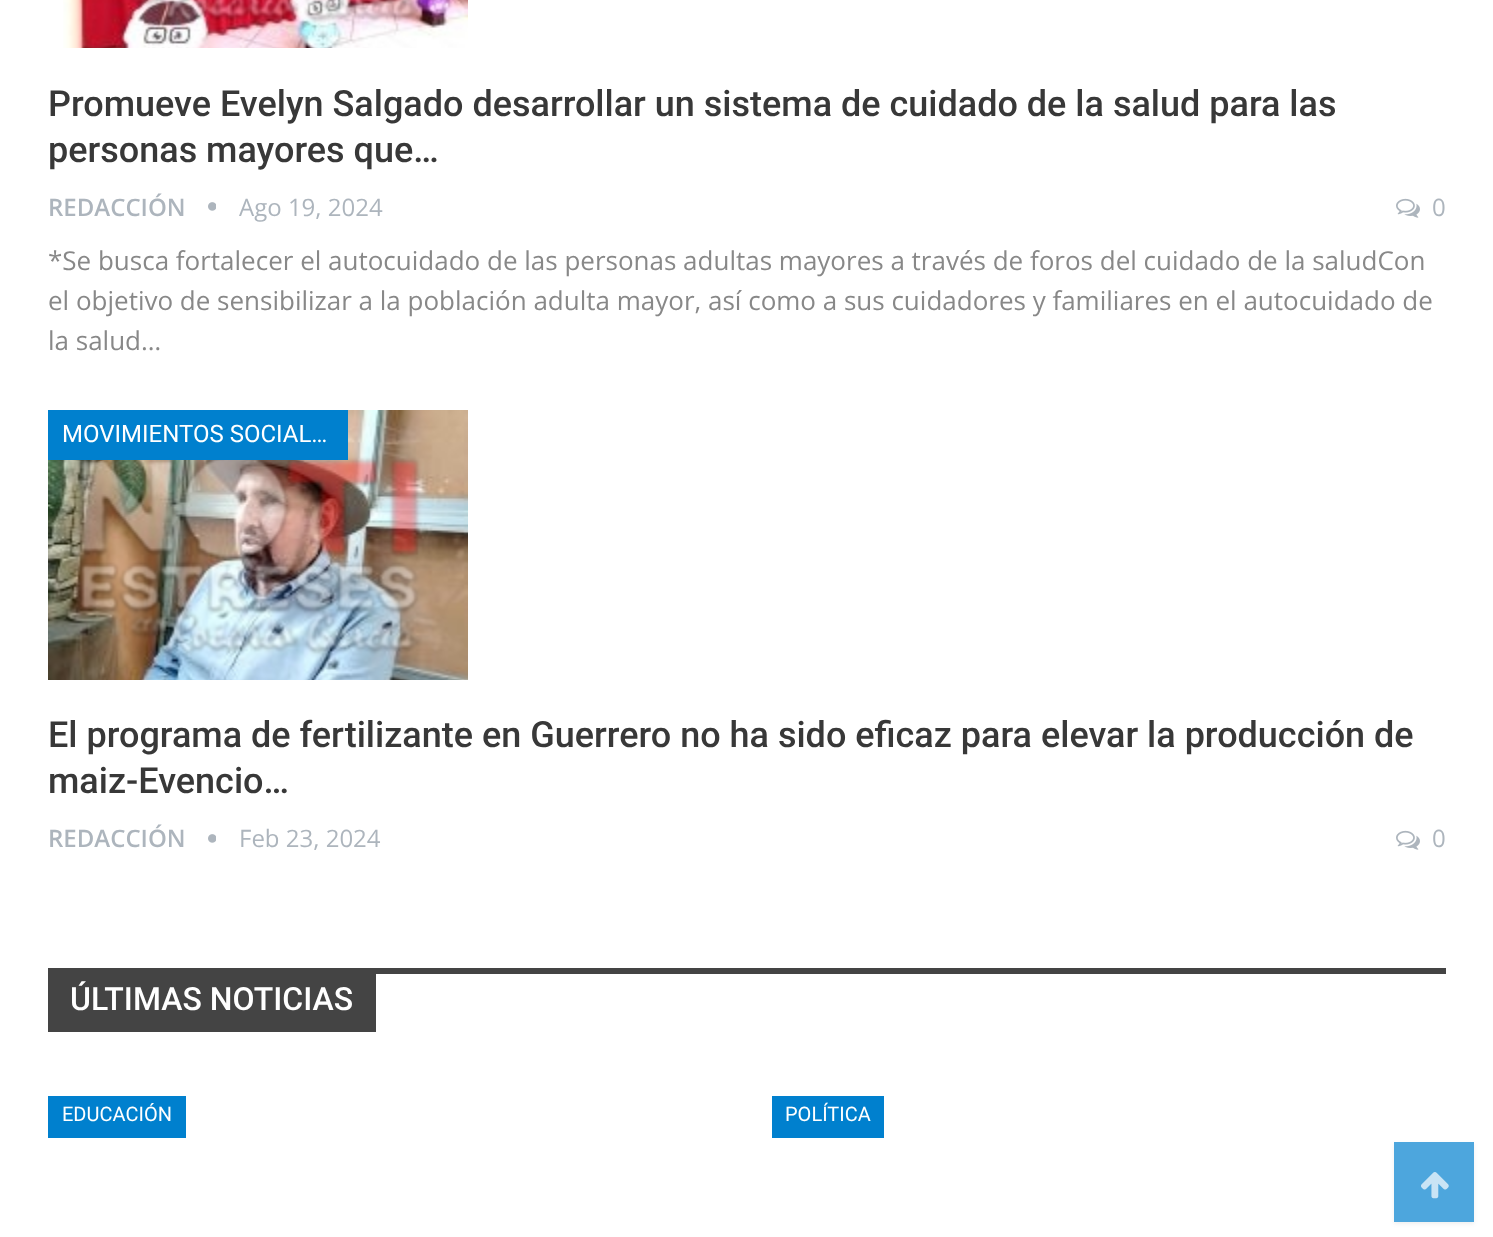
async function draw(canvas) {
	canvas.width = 1493;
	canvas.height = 1237;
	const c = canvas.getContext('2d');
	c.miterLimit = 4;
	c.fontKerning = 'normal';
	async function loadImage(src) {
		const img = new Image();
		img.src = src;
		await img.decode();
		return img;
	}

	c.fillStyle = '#fff';
	c.fillRect(0, 0, 1493, 1237);
	c.drawImage(await loadImage('img1.png'), 63, 0, 405, 48);
	c.font = '500 36px Roboto';
	c.fillStyle = '#383838';
	c.fillText('Promueve Evelyn Salgado desarrollar un sistema de cuidado de la salud para las', 48, 116);
	c.fillText('personas mayores que…', 48, 162);
	c.font = '600 24px Open Sans';
	c.fillStyle = '#adb5bd';
	c.fillText('REDACCIÓN', 48, 216);
	c.drawImage(await loadImage('img2.png'), 208, 202, 8, 9);
	c.font = '24px Open Sans';
	c.fillText('Ago 19, 2024', 239, 216);
	c.drawImage(await loadImage('img3.png'), 1396, 198, 24, 20);
	c.fillText('0', 1432, 216);
	c.font = '26px Open Sans';
	c.fillStyle = '#888';
	for (const [text, x, y] of [
		['*Se busca fortalecer el autocuidado de las personas adultas mayores a través de foros del cuidado de la saludCon', 48, 270],
		['el objetivo de sensibilizar a la población adulta mayor, así como a sus cuidadores y familiares en el autocuidado de', 48, 310],
		['la salud…', 48, 350],
	]) {
		c.fillText(text, x, y);
	}
	c.drawImage(await loadImage('img4.png'), 48, 410, 420, 270);
	c.fillStyle = '#0080ce';
	c.fillRect(48, 410, 300, 50);
	c.font = '24px Roboto';
	c.fillStyle = '#fff';
	c.fillText('MOVIMIENTOS SOCIAL…', 62, 442);
	c.font = '500 36px Roboto';
	c.fillStyle = '#383838';
	c.fillText('El programa de fertilizante en Guerrero no ha sido eficaz para elevar la producción de', 48, 747);
	c.fillText('maiz-Evencio…', 48, 793);
	c.font = '600 24px Open Sans';
	c.fillStyle = '#adb5bd';
	c.fillText('REDACCIÓN', 48, 847);
	c.drawImage(await loadImage('img2.png'), 208, 834, 8, 9);
	c.font = '24px Open Sans';
	c.fillText('Feb 23, 2024', 239, 847);
	c.drawImage(await loadImage('img3.png'), 1396, 830, 24, 20);
	c.fillText('0', 1432, 847);
	c.fillStyle = '#444';
	c.fillRect(376, 968, 1070, 6);
	c.fillRect(48, 968, 328, 64);
	c.font = '500 32px Roboto';
	c.fillStyle = '#fff';
	c.fillText('ÚLTIMAS NOTICIAS', 70, 1010);
	c.fillStyle = '#0080ce';
	c.fillRect(48, 1096, 138, 42);
	c.font = '20px Roboto';
	c.fillStyle = '#fff';
	c.fillText('EDUCACIÓN', 62, 1121);
	c.fillStyle = '#0080ce';
	c.fillRect(772, 1096, 112, 42);
	c.fillStyle = '#fff';
	c.fillText('POLÍTICA', 785, 1121);
	c.fillStyle = '#4d4d4d17';
	c.filter = 'blur(2px)';
	c.beginPath();
	c.rect(1394, 1144, 80, 80);
	c.fill();
	c.filter = 'none';
	c.fillStyle = '#4da6dd';
	c.fillRect(1394, 1142, 80, 80);
	c.drawImage(await loadImage('img5.png'), 1421, 1172, 28, 27);
}

draw(document.querySelector('canvas'));
